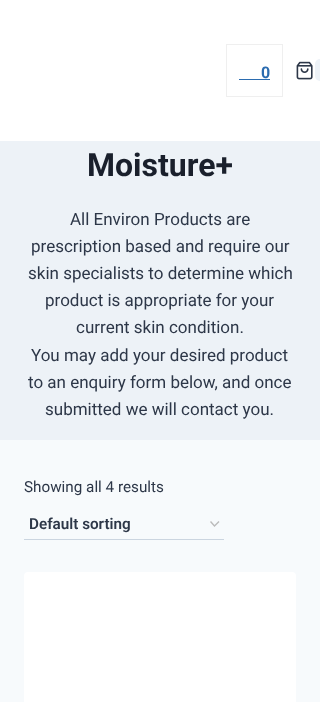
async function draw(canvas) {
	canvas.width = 320;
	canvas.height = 702;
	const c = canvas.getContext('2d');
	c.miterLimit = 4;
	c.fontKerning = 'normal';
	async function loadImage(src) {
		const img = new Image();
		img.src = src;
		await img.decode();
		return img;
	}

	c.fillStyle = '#f7fafc';
	c.fillRect(0, 0, 320, 702);
	c.fillStyle = '#fff';
	c.fillRect(0, 0, 320, 141);
	c.strokeStyle = '#efefef';
	c.strokeRect(226.5, 44.5, 56, 52);
	c.font = 'bold 16px Roboto';
	c.fillStyle = '#2b6cb0';
	c.fillText('0', 261, 78);
	c.fillRect(239, 79, 31, 1);
	c.drawImage(await loadImage('img1.png'), 296, 61, 17, 19);
	c.fillStyle = '#edf2f7';
	c.beginPath();
	c.roundRect(315, 59, 5, 22, [11, 0, 0, 11]);
	c.fill();
	c.fillRect(0, 141, 320, 299);
	c.font = 'bold 32px Roboto';
	c.fillStyle = '#1a202c';
	c.fillText('Moisture+', 87, 176);
	c.font = '17px Roboto';
	c.fillStyle = '#2d3748';
	for (const [text, x, y] of [
		['All Environ Products are', 70, 225],
		['prescription based and require our', 31, 252],
		['skin specialists to determine which', 28, 279],
		['product is appropriate for your', 45, 306],
		['current skin condition.', 76, 333],
		['You may add your desired product', 31, 361],
		['to an enquiry form below, and once', 28, 388],
		['submitted we will contact you.', 45, 415],
	]) {
		c.fillText(text, x, y);
	}
	c.font = '15.25px Roboto';
	c.fillText('Showing all 4 results', 24, 492);
	c.beginPath();
	c.moveTo(210.5, 521.5);
	c.lineTo(214.5, 526);
	c.lineTo(219, 521.5);
	c.strokeStyle = '#bbb';
	c.lineWidth = 1.4;
	c.stroke();
	c.fillStyle = '#cbd5e0';
	c.fillRect(24, 539, 200, 1);
	c.font = '600 15.25px Roboto';
	c.fillStyle = '#2d3748';
	c.fillText('Default sorting', 29, 529);
	c.fillStyle = '#fff';
	c.beginPath();
	c.roundRect(24, 572, 272, 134, 4);
	c.fill();
}

draw(document.querySelector('canvas'));
